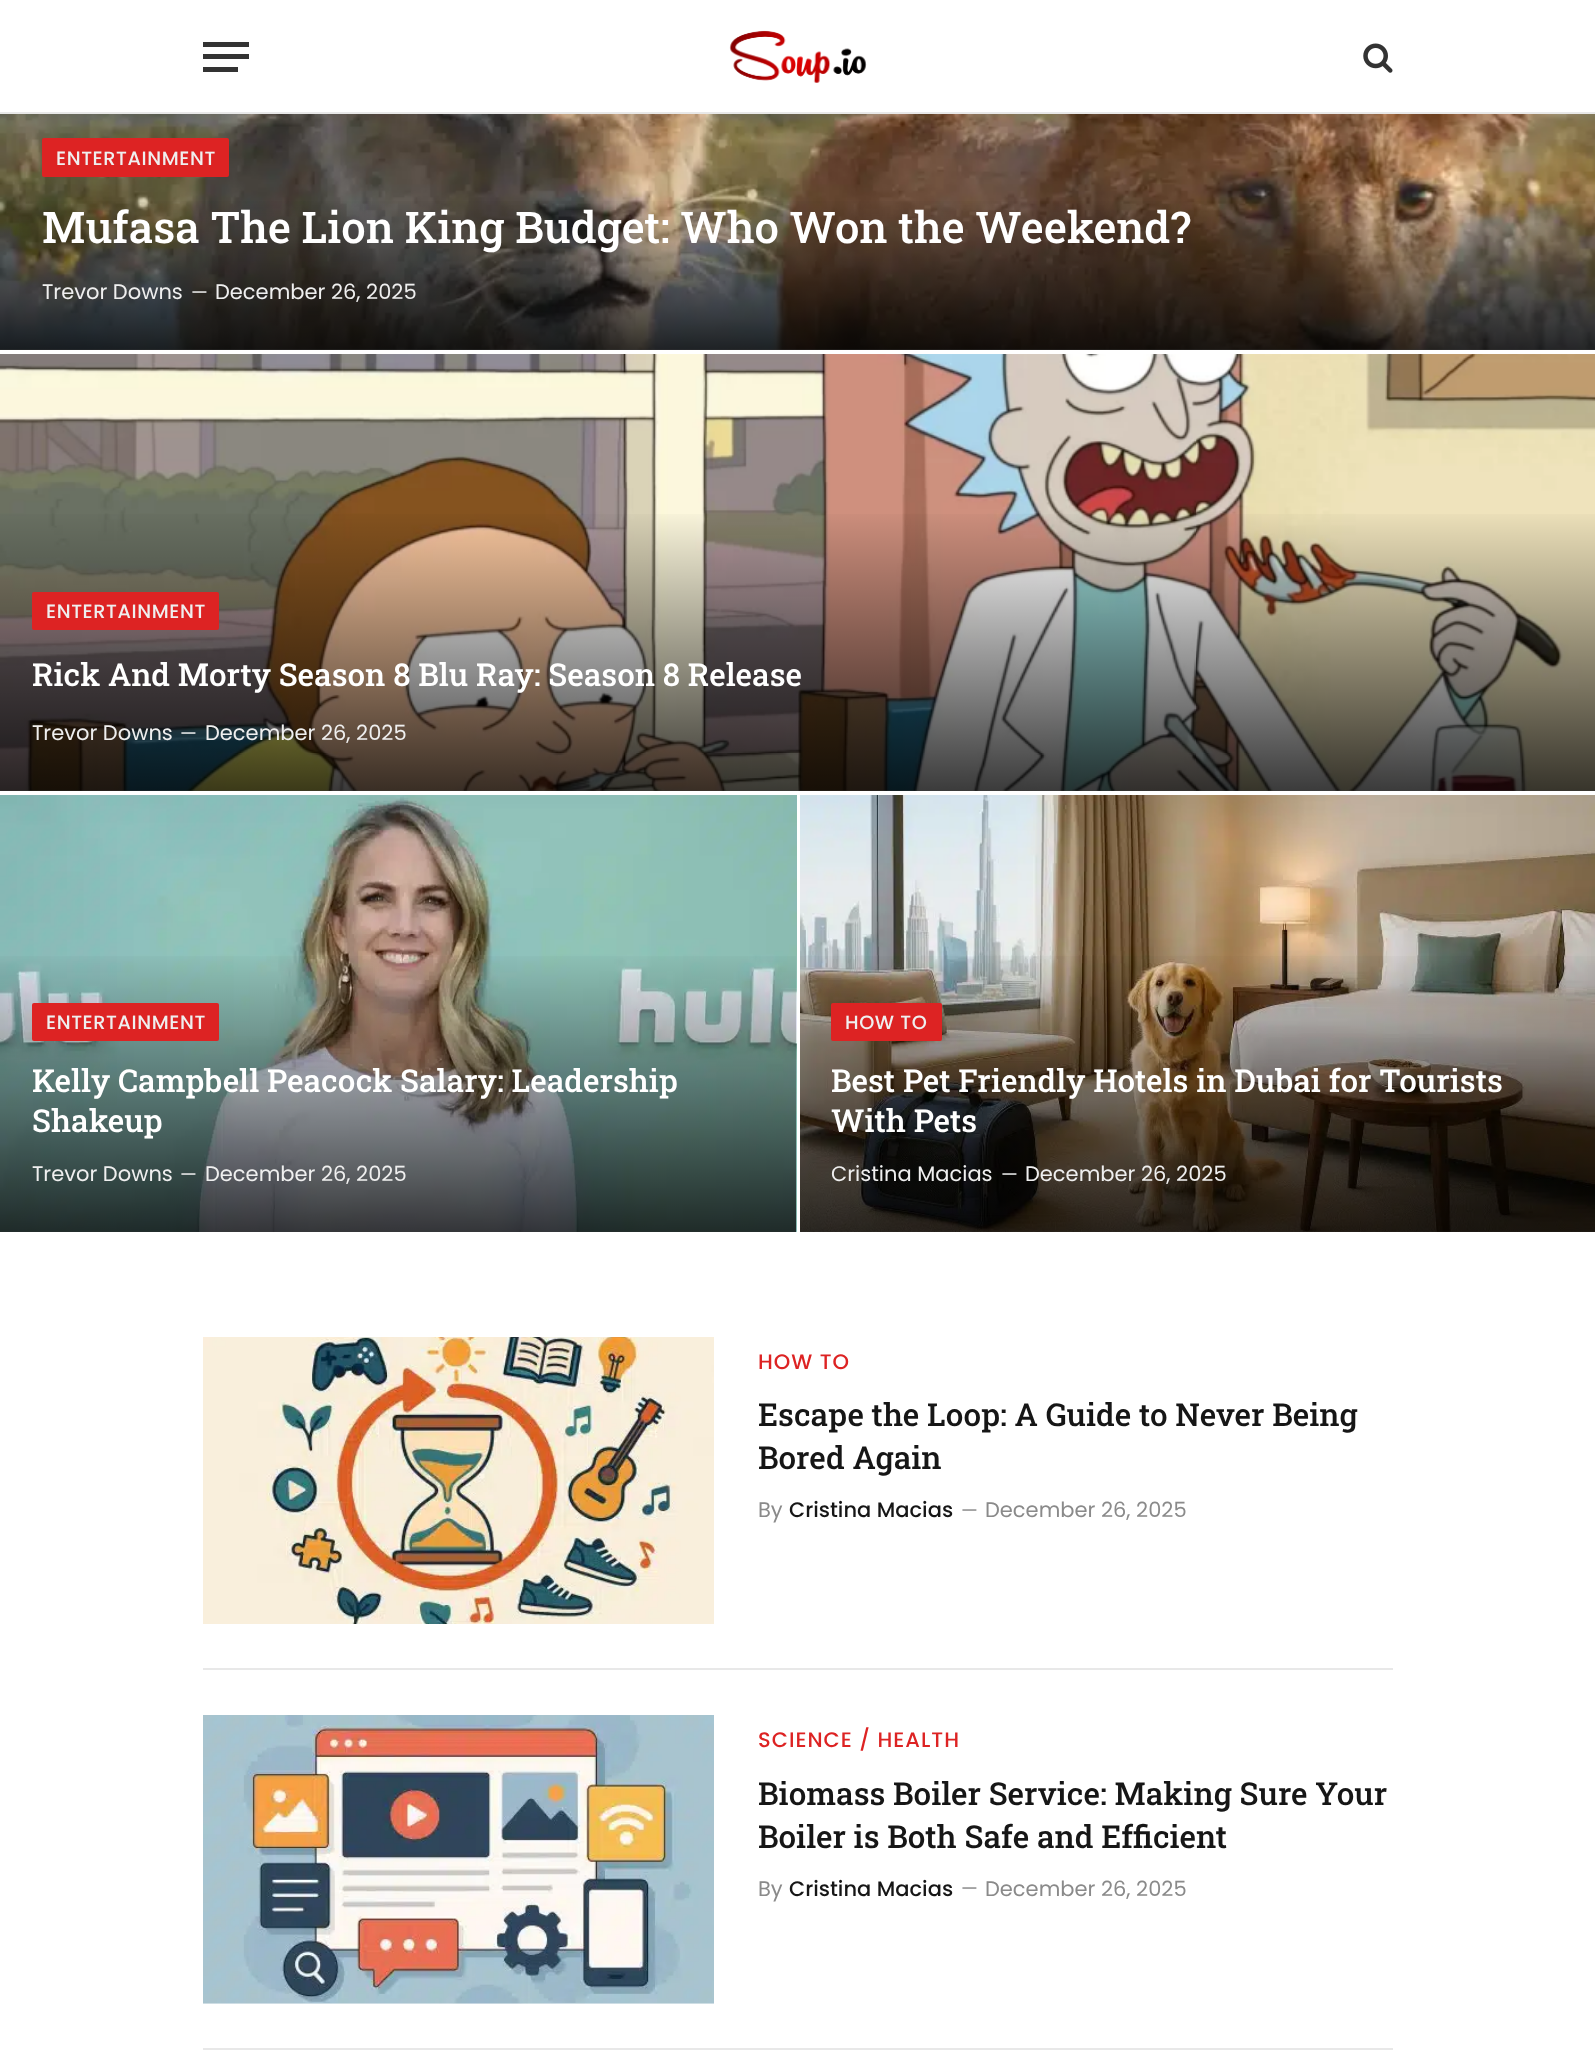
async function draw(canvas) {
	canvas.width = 1595;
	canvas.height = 2051;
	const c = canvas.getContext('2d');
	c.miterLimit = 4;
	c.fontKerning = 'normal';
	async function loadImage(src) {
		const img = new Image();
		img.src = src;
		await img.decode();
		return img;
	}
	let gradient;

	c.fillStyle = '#fff';
	c.fillRect(0, 0, 1595, 2051);
	for (const [x, y, w, h, color] of [
		[0, 112, 1595, 2, '#e8e8e8'],
		[203, 67, 35, 5, '#333'],
		[203, 42, 46, 5, '#333'],
		[203, 54, 46, 5, '#333'],
	]) {
		c.fillStyle = color;
		c.fillRect(x, y, w, h);
	}
	c.drawImage(await loadImage('img1.png'), 729, 30, 138, 53);
	c.drawImage(await loadImage('img2.png'), 1363, 43, 30, 30);
	c.drawImage(await loadImage('img3.png'), 0, 114, 1595, 236);
	c.fillStyle = '#dd2323';
	c.beginPath();
	c.roundRect(42, 138, 187, 39, 2);
	c.fill();
	c.letterSpacing = '0.6px';
	c.font = '500 19.25px Poppins';
	c.fillStyle = '#efefef';
	c.fillText('ENTERTAINMENT', 56, 165);
	gradient = c.createLinearGradient(798, 114, 798, 350);
	gradient.addColorStop(0.35, '#00000000');
	gradient.addColorStop(1, '#000000c4');
	c.fillStyle = gradient;
	c.fillRect(0, 201, 1595, 149);
	c.letterSpacing = '0px';
	c.font = '500 43.75px Roboto Slab';
	c.fillStyle = '#fff';
	c.fillText('Mufasa The Lion King Budget: Who Won the Weekend?', 42, 243);
	c.font = '21px Poppins';
	c.fillStyle = '#efefef';
	c.fillText('Trevor Downs', 42, 299);
	c.font = '19px Poppins';
	c.fillText('—', 191, 299);
	c.font = '21px Poppins';
	c.fillText('December 26, 2025', 215, 299);
	c.drawImage(await loadImage('img4.png'), 0, 354, 1595, 437);
	gradient = c.createLinearGradient(798, 353, 798, 791);
	gradient.addColorStop(0.35, '#00000000');
	gradient.addColorStop(1, '#000000c4');
	c.fillStyle = gradient;
	c.fillRect(0, 514, 1595, 277);
	c.fillStyle = '#dd2323';
	c.beginPath();
	c.roundRect(32, 592, 187, 38, 2);
	c.fill();
	c.letterSpacing = '0.6px';
	c.font = '500 19.25px Poppins';
	c.fillStyle = '#efefef';
	c.fillText('ENTERTAINMENT', 46, 618);
	c.letterSpacing = '0px';
	c.font = '500 31.5px Roboto Slab';
	c.fillStyle = '#fff';
	c.fillText('Rick And Morty Season 8 Blu Ray: Season 8 Release', 32, 686);
	c.font = '21px Poppins';
	c.fillStyle = '#efefef';
	c.fillText('Trevor Downs', 32, 740);
	c.font = '19px Poppins';
	c.fillText('—', 180, 740);
	c.font = '21px Poppins';
	c.fillText('December 26, 2025', 205, 740);
	c.drawImage(await loadImage('img5.png'), 0, 795, 797, 437);
	gradient = c.createLinearGradient(398, 795, 398, 1232);
	gradient.addColorStop(0.35, '#00000000');
	gradient.addColorStop(1, '#000000c4');
	c.fillStyle = gradient;
	c.fillRect(0, 956, 796, 276);
	c.fillStyle = '#dd2323';
	c.beginPath();
	c.roundRect(32, 1003, 187, 38, 2);
	c.fill();
	c.letterSpacing = '0.6px';
	c.font = '500 19.25px Poppins';
	c.fillStyle = '#efefef';
	c.fillText('ENTERTAINMENT', 46, 1029);
	c.letterSpacing = '0px';
	c.font = '500 31.5px Roboto Slab';
	c.fillStyle = '#fff';
	c.fillText('Kelly Campbell Peacock Salary: Leadership', 32, 1092);
	c.fillText('Shakeup', 32, 1132);
	c.font = '21px Poppins';
	c.fillStyle = '#efefef';
	c.fillText('Trevor Downs', 32, 1181);
	c.font = '19px Poppins';
	c.fillText('—', 180, 1181);
	c.font = '21px Poppins';
	c.fillText('December 26, 2025', 205, 1181);
	c.drawImage(await loadImage('img6.png'), 800, 795, 795, 437);
	gradient = c.createLinearGradient(1198, 795, 1198, 1232);
	gradient.addColorStop(0.35, '#00000000');
	gradient.addColorStop(1, '#000000c4');
	c.fillStyle = gradient;
	c.fillRect(800, 956, 795, 276);
	c.fillStyle = '#dd2323';
	c.beginPath();
	c.roundRect(831, 1003, 111, 38, 2);
	c.fill();
	c.letterSpacing = '0.6px';
	c.font = '500 19.25px Poppins';
	c.fillStyle = '#efefef';
	c.fillText('HOW TO', 845, 1029);
	c.letterSpacing = '0px';
	c.font = '500 31.5px Roboto Slab';
	c.fillStyle = '#fff';
	c.fillText('Best Pet Friendly Hotels in Dubai for Tourists', 831, 1092);
	c.fillText('With Pets', 831, 1132);
	c.font = '21px Poppins';
	c.fillStyle = '#efefef';
	c.fillText('Cristina Macias', 831, 1181);
	c.font = '19px Poppins';
	c.fillText('—', 1001, 1181);
	c.font = '21px Poppins';
	c.fillText('December 26, 2025', 1025, 1181);
	c.drawImage(await loadImage('img7.png'), 203, 1337, 511, 287);
	c.letterSpacing = '1px';
	c.font = '500 21px Poppins';
	c.fillStyle = '#dd2323';
	c.fillText('HOW TO', 758, 1369);
	c.letterSpacing = '0px';
	c.font = '500 31.5px Roboto Slab';
	c.fillStyle = '#161616';
	c.fillText('Escape the Loop: A Guide to Never Being', 758, 1426);
	c.fillText('Bored Again', 758, 1469);
	c.font = '21px Poppins';
	c.fillStyle = '#8a8a8a';
	c.fillText('By', 758, 1517);
	c.font = '500 21px Poppins';
	c.fillStyle = '#161616';
	c.fillText('Cristina Macias', 789, 1517);
	c.font = '19px Poppins';
	c.fillStyle = '#8a8a8a';
	c.fillText('—', 961, 1517);
	c.font = '21px Poppins';
	c.fillText('December 26, 2025', 985, 1517);
	c.fillStyle = '#e8e8e8';
	c.fillRect(203, 1668, 1190, 2);
	c.drawImage(await loadImage('img8.png'), 203, 1715, 511, 289);
	c.letterSpacing = '1px';
	c.font = '500 21px Poppins';
	c.fillStyle = '#dd2323';
	c.fillText('SCIENCE / HEALTH', 758, 1747);
	c.letterSpacing = '0px';
	c.font = '500 31.5px Roboto Slab';
	c.fillStyle = '#161616';
	c.fillText('Biomass Boiler Service: Making Sure Your', 758, 1805);
	c.fillText('Boiler is Both Safe and Efficient', 758, 1848);
	c.font = '21px Poppins';
	c.fillStyle = '#8a8a8a';
	c.fillText('By', 758, 1896);
	c.font = '500 21px Poppins';
	c.fillStyle = '#161616';
	c.fillText('Cristina Macias', 789, 1896);
	c.font = '19px Poppins';
	c.fillStyle = '#8a8a8a';
	c.fillText('—', 961, 1895);
	c.font = '21px Poppins';
	c.fillText('December 26, 2025', 985, 1896);
	c.fillStyle = '#e8e8e8';
	c.fillRect(203, 2048, 1190, 2);
}

draw(document.querySelector('canvas'));
